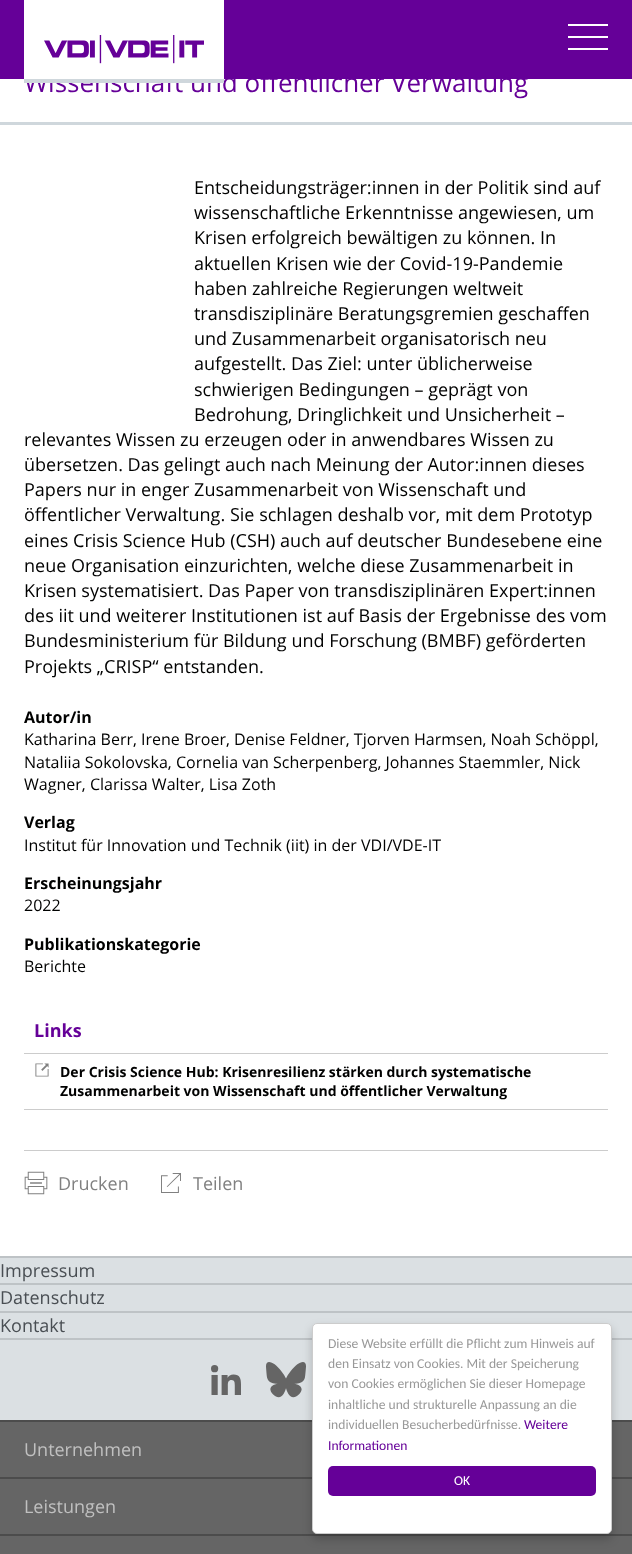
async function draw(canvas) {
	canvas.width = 632;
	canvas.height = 1554;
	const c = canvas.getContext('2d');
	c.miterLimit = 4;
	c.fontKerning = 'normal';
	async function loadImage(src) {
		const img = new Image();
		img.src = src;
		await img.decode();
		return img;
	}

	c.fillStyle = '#fff';
	c.fillRect(0, 0, 632, 1554);
	c.fillStyle = '#650098';
	c.fillRect(0, 0, 632, 79);
	c.font = '26px Open Sans';
	c.fillText('Wissenschaft und öffentlicher Verwaltung', 24, 92);
	c.fillStyle = '#cfd7dc';
	c.fillRect(24, 79, 200, 4);
	c.fillStyle = '#fff';
	c.fillRect(24, 0, 200, 79);
	c.drawImage(await loadImage('img1.png'), 44, 35, 160, 29);
	for (const [x, y, w, h, color] of [
		[568, 36, 40, 2, '#fff'],
		[568, 24, 40, 2, '#fff'],
		[568, 48, 40, 2, '#fff'],
		[0, 122, 632, 3, '#cfd7dc'],
	]) {
		c.fillStyle = color;
		c.fillRect(x, y, w, h);
	}
	c.font = '18px Open Sans';
	c.fillStyle = '#000100';
	for (const [text, x, y] of [
		['Entscheidungsträger:innen in der Politik sind auf', 194, 194],
		['wissenschaftliche Erkenntnisse angewiesen, um', 194, 219],
		['Krisen erfolgreich bewältigen zu können. In', 194, 244],
		['aktuellen Krisen wie der Covid-19-Pandemie', 194, 270],
		['haben zahlreiche Regierungen weltweit', 194, 295],
		['transdisziplinäre Beratungsgremien geschaffen', 194, 320],
		['und Zusammenarbeit organisatorisch neu', 194, 345],
		['aufgestellt. Das Ziel: unter üblicherweise', 194, 370],
		['schwierigen Bedingungen – geprägt von', 194, 396],
		['Bedrohung, Dringlichkeit und Unsicherheit –', 194, 421],
		['relevantes Wissen zu erzeugen oder in anwendbares Wissen zu', 24, 446],
		['übersetzen. Das gelingt auch nach Meinung der Autor:innen dieses', 24, 471],
		['Papers nur in enger Zusammenarbeit von Wissenschaft und', 24, 496],
		['öffentlicher Verwaltung. Sie schlagen deshalb vor, mit dem Prototyp', 24, 521],
		['eines Crisis Science Hub (CSH) auch auf deutscher Bundesebene eine', 24, 547],
		['neue Organisation einzurichten, welche diese Zusammenarbeit in', 24, 572],
		['Krisen systematisiert. Das Paper von transdisziplinären Expert:innen', 24, 597],
		['des iit und weiterer Institutionen ist auf Basis der Ergebnisse des vom', 24, 622],
		['Bundesministerium für Bildung und Forschung (BMBF) geförderten', 24, 647],
		['Projekts „CRISP“ entstanden.', 24, 673],
	]) {
		c.fillText(text, x, y);
	}
	c.font = 'bold 16px Open Sans';
	c.fillText('Autor/in', 24, 723);
	c.font = '16px Open Sans';
	for (const [text, x, y] of [
		['Katharina Berr, Irene Broer, Denise Feldner, Tjorven Harmsen, Noah Schöppl,', 24, 745],
		['Nataliia Sokolovska, Cornelia van Scherpenberg, Johannes Staemmler, Nick', 24, 768],
		['Wagner, Clarissa Walter, Lisa Zoth', 24, 790],
	]) {
		c.fillText(text, x, y);
	}
	c.font = 'bold 16px Open Sans';
	c.fillText('Verlag', 24, 828);
	c.font = '16px Open Sans';
	c.fillText('Institut für Innovation und Technik (iit) in der VDI/VDE-IT', 24, 851);
	c.font = 'bold 16px Open Sans';
	c.fillText('Erscheinungsjahr', 24, 889);
	c.font = '16px Open Sans';
	c.fillText('2022', 24, 911);
	c.font = 'bold 16px Open Sans';
	c.fillText('Publikationskategorie', 24, 950);
	c.font = '16px Open Sans';
	c.fillText('Berichte', 24, 972);
	c.font = 'bold 18px Open Sans';
	c.fillStyle = '#650098';
	c.fillText('Links', 34, 1037);
	c.fillStyle = '#ccc';
	c.fillRect(24, 1109, 584, 1);
	c.fillRect(24, 1053, 584, 1);
	c.drawImage(await loadImage('img2.png'), 35, 1063, 14, 14);
	c.font = 'bold 14px Open Sans';
	c.fillStyle = '#000100';
	c.fillText('Der Crisis Science Hub: Krisenresilienz stärken durch systematische', 60, 1077);
	c.fillText('Zusammenarbeit von Wissenschaft und öffentlicher Verwaltung', 60, 1096);
	c.fillStyle = '#ccc';
	c.fillRect(24, 1150, 584, 1);
	c.drawImage(await loadImage('img3.png'), 24, 1171, 24, 24);
	c.font = '18px Open Sans';
	c.fillStyle = '#808080';
	c.fillText('Drucken', 58, 1190);
	c.drawImage(await loadImage('img4.png'), 161, 1173, 20, 20);
	c.fillText('Teilen', 193, 1190);
	for (const [x, y, w, h, color] of [
		[0, 1258, 632, 162, '#dbe0e3'],
		[0, 1338, 632, 2, '#bec3c6'],
		[0, 1256, 632, 2, '#bec3c6'],
	]) {
		c.fillStyle = color;
		c.fillRect(x, y, w, h);
	}
	c.fillStyle = '#494e53';
	c.fillText('Impressum', 0, 1277);
	c.fillStyle = '#bec3c6';
	c.fillRect(0, 1283, 632, 2);
	c.fillStyle = '#494e53';
	c.fillText('Datenschutz', 0, 1304);
	c.fillStyle = '#bec3c6';
	c.fillRect(0, 1311, 632, 2);
	c.fillStyle = '#494e53';
	c.fillText('Kontakt', 0, 1332);
	c.drawImage(await loadImage('img5.png'), 211, 1365, 30, 30);
	c.drawImage(await loadImage('img6.png'), 266, 1362, 40, 36);
	for (const [x, y, w, h, color] of [
		[0, 1422, 632, 132, '#656565'],
		[0, 1420, 632, 2, '#4c4c4c'],
		[0, 1477, 632, 2, '#4c4c4c'],
	]) {
		c.fillStyle = color;
		c.fillRect(x, y, w, h);
	}
	c.fillStyle = '#c0c0c0';
	c.fillText('Unternehmen', 24, 1456);
	c.fillStyle = '#4c4c4c';
	c.fillRect(0, 1534, 632, 2);
	c.fillStyle = '#c0c0c0';
	c.fillText('Leistungen', 24, 1513);
	c.fillStyle = '#00000033';
	c.filter = 'blur(5px)';
	c.beginPath();
	c.roundRect(312, 1328, 300, 211, 5);
	c.fill();
	c.filter = 'none';
	c.fillStyle = '#fff';
	c.beginPath();
	c.roundRect(312.5, 1323.5, 299, 210, 4.5);
	c.fill();
	c.strokeStyle = '#ccc';
	c.stroke();
	c.font = '13.6px Carlito';
	c.fillStyle = '#999';
	for (const [text, x, y] of [
		['Diese Website erfüllt die Pflicht zum Hinweis auf', 328, 1348],
		['den Einsatz von Cookies. Mit der Speicherung', 328, 1368],
		['von Cookies ermöglichen Sie dieser Homepage', 328, 1388],
		['inhaltliche und strukturelle Anpassung an die', 328, 1409],
		['individuellen Besucherbedürfnisse.', 328, 1429],
	]) {
		c.fillText(text, x, y);
	}
	c.fillStyle = '#650098';
	c.fillText('Weitere', 524, 1429);
	c.fillText('Informationen', 328, 1450);
	c.beginPath();
	c.roundRect(328, 1466, 268, 30, 5);
	c.fill();
	c.fillStyle = '#fff';
	c.fillText('OK', 454, 1485);
}

draw(document.querySelector('canvas'));
